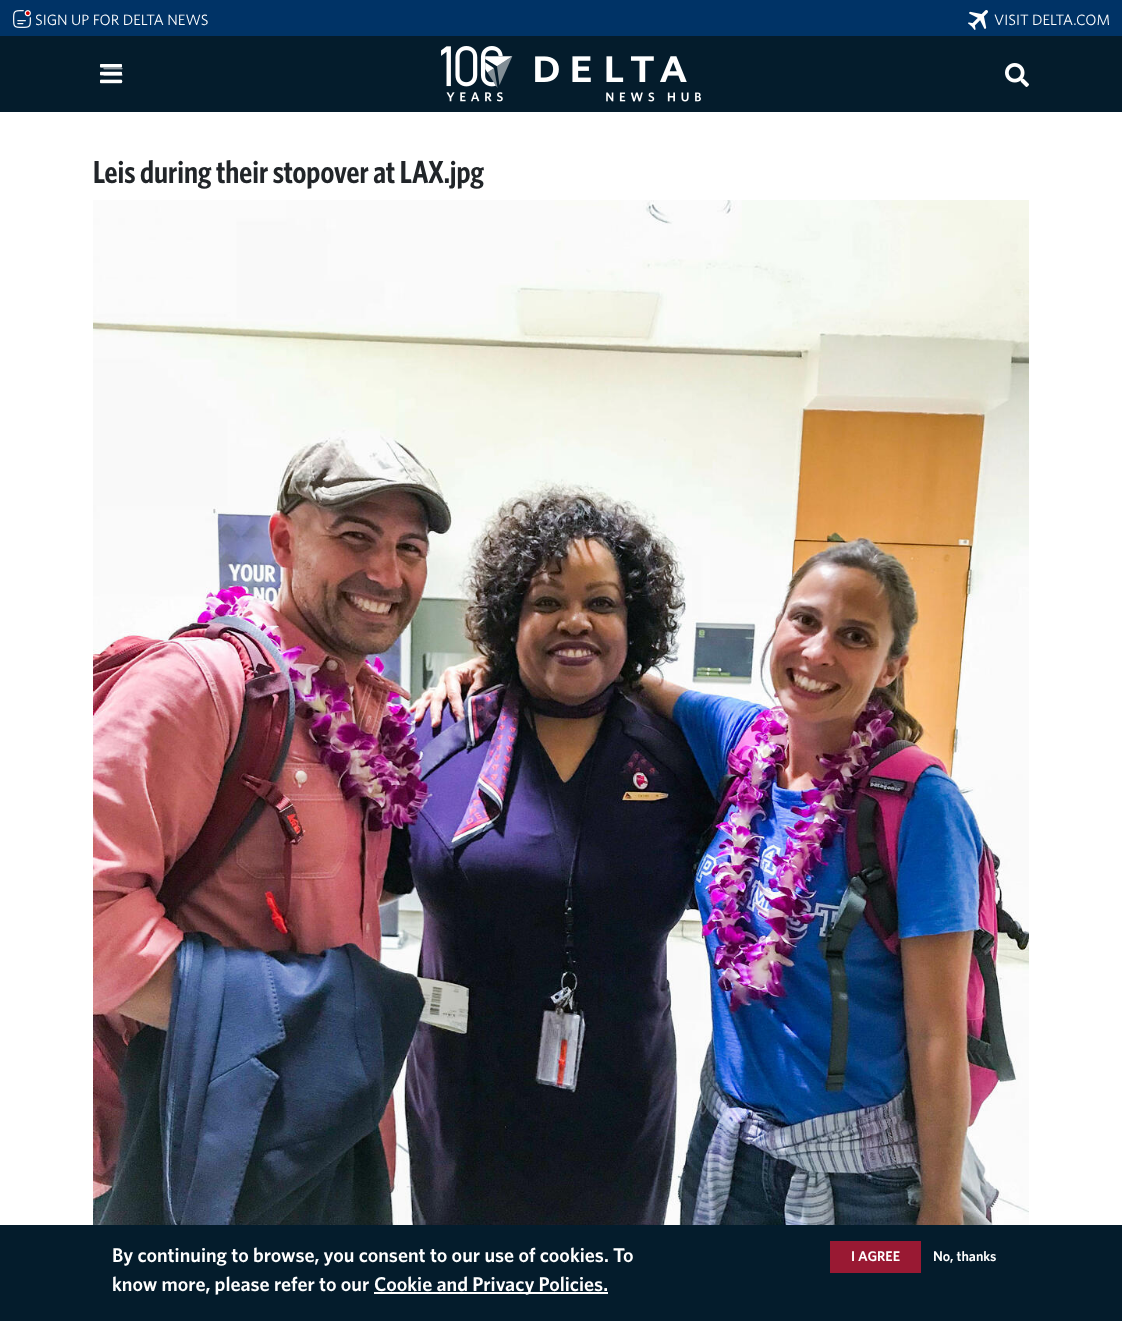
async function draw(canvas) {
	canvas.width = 1122;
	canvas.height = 1321;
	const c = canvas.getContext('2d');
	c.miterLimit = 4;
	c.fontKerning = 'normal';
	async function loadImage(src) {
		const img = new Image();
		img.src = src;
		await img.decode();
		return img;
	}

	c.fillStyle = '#fff';
	c.fillRect(0, 0, 1122, 1321);
	c.fillStyle = '#036';
	c.fillRect(0, 0, 1122, 36);
	c.drawImage(await loadImage('img1.png'), 13, 10, 18, 18);
	c.font = '15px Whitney';
	c.fillStyle = '#fff';
	c.fillText('SIGN UP FOR DELTA NEWS', 35, 25);
	c.drawImage(await loadImage('img2.png'), 968, 10, 20, 20);
	c.fillText('VISIT DELTA.COM', 994, 25);
	c.fillStyle = '#041c2c';
	c.fillRect(0, 36, 1122, 76);
	c.drawImage(await loadImage('img3.png'), 100, 64, 22, 20);
	c.drawImage(await loadImage('img4.png'), 103, 67, 20, 15);
	c.drawImage(await loadImage('img5.png'), 441, 46, 260, 56);
	c.drawImage(await loadImage('img6.png'), 1005, 63, 24, 24);
	c.font = '600 32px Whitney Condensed';
	c.fillStyle = '#212529';
	c.fillText('Leis during their stopover at LAX.jpg', 93, 183);
	c.drawImage(await loadImage('img7.png'), 93, 200, 936, 1025);
	c.fillStyle = '#041c2c';
	c.fillRect(0, 1225, 1122, 96);
	c.font = '600 20px Whitney';
	c.fillStyle = '#fff';
	c.fillText('By continuing to browse, you consent to our use of cookies. To', 112, 1262);
	c.fillText('know more, please refer to our', 112, 1291);
	c.fillRect(374, 1292, 234, 2);
	c.fillText('Cookie and Privacy Policies.', 374, 1291);
	c.fillStyle = '#991933';
	c.fillRect(830, 1241, 91, 32);
	c.font = '600 14px Whitney';
	c.fillStyle = '#fff';
	c.fillText('I AGREE', 851, 1261);
	c.fillText('No, thanks', 933, 1261);
}

draw(document.querySelector('canvas'));
